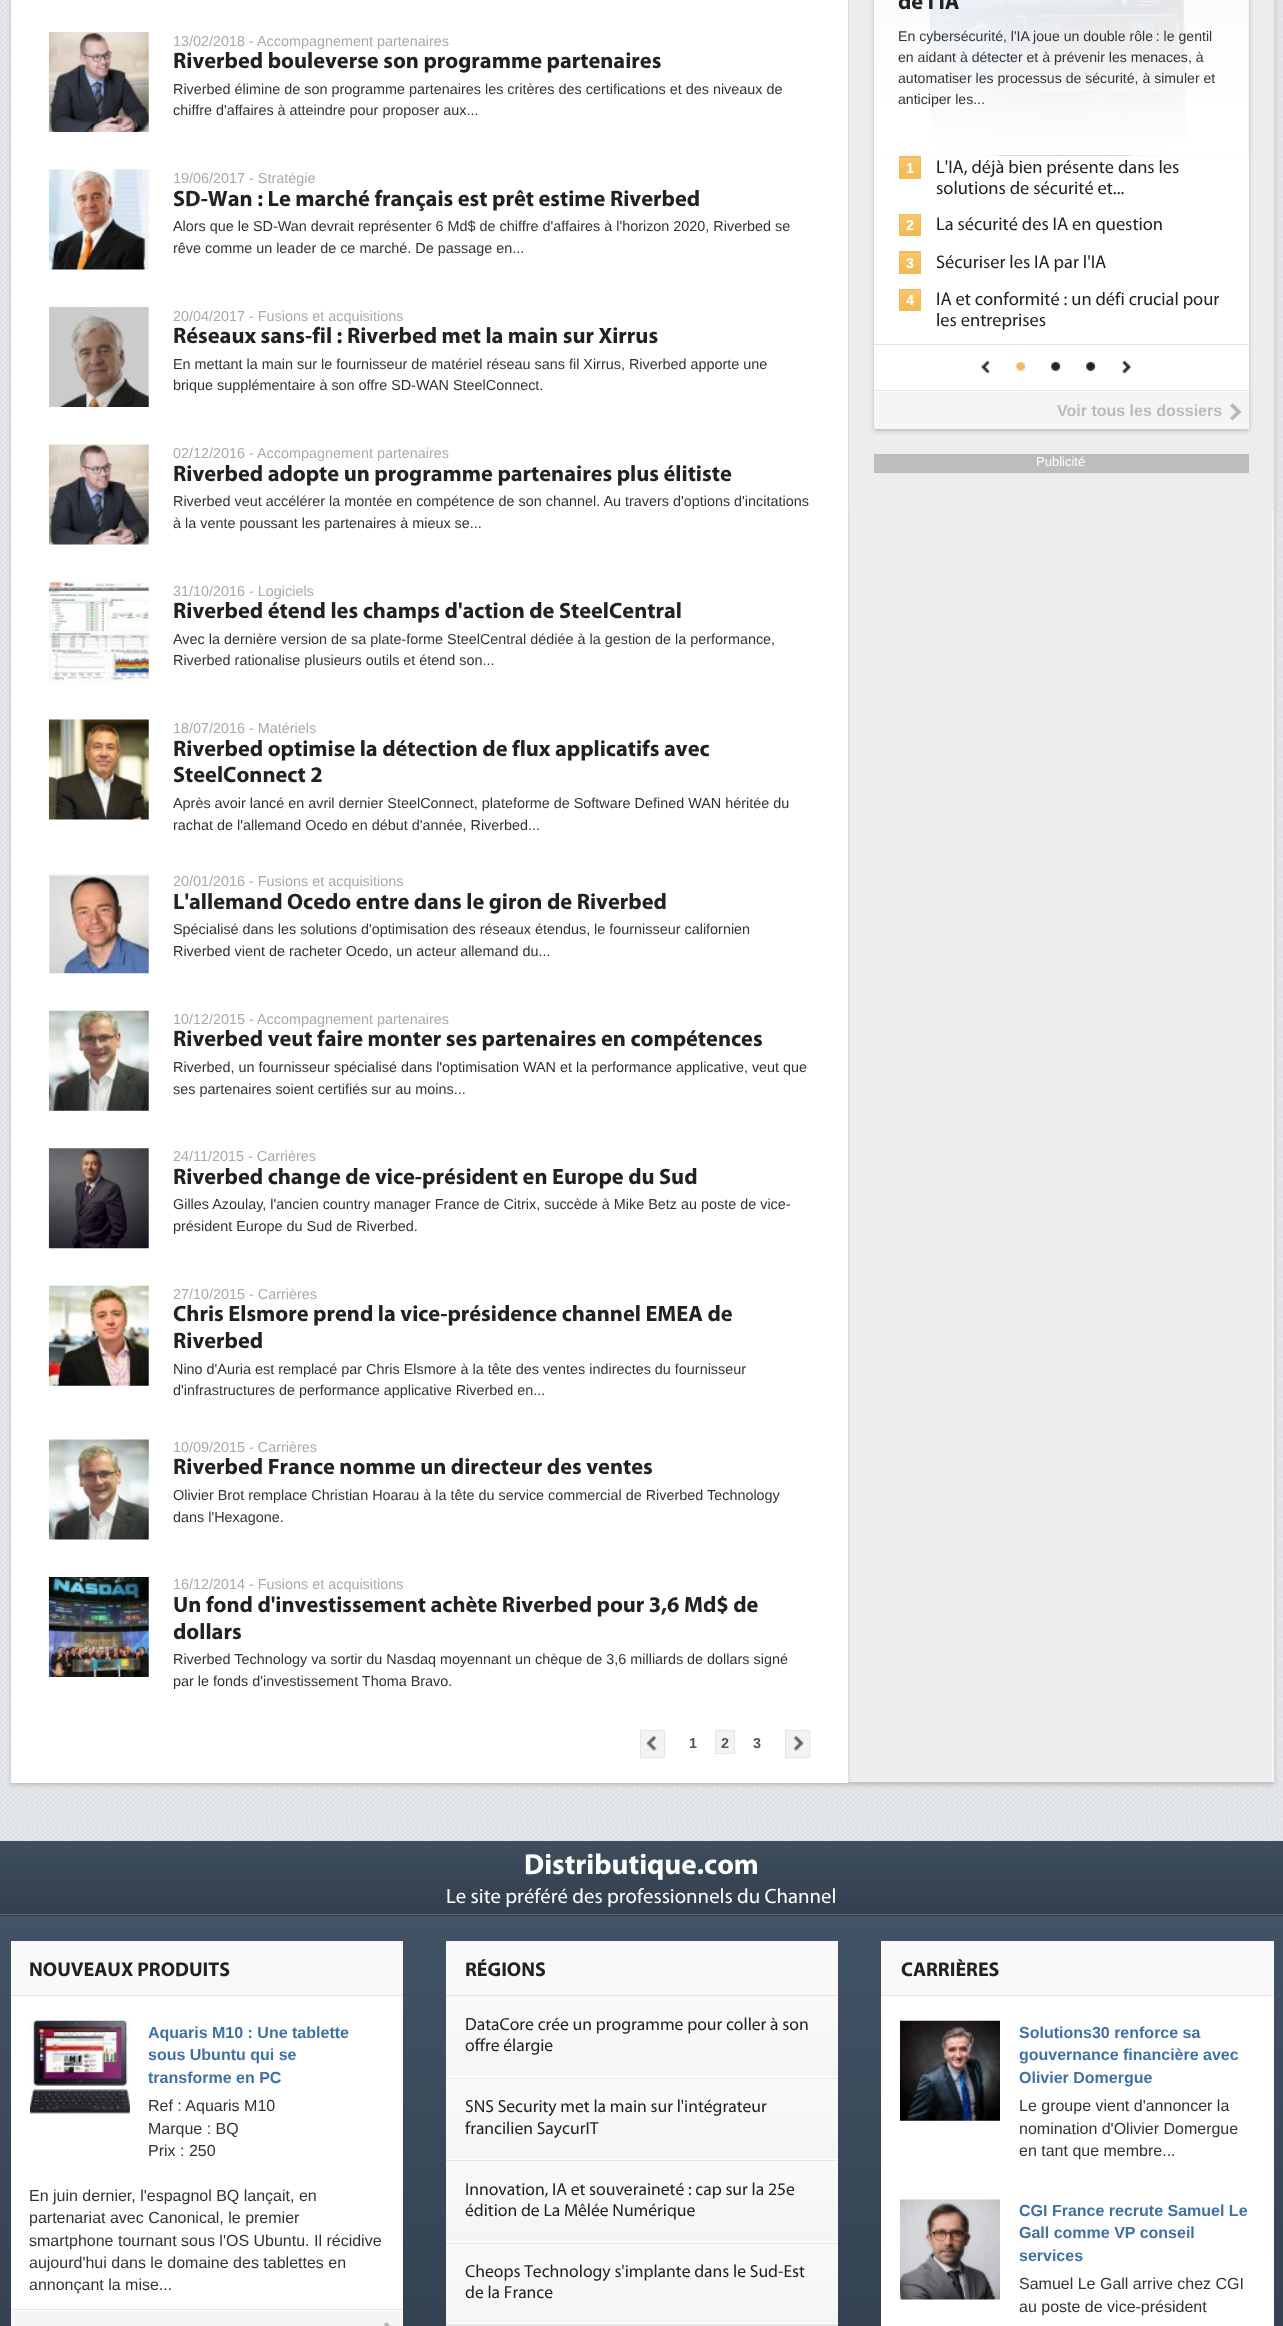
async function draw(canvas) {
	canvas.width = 1283;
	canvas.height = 2326;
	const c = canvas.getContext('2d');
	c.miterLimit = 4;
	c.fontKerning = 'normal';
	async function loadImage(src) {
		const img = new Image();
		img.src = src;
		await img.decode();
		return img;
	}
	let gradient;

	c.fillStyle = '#fff';
	c.fillRect(0, 0, 1283, 2326);
	c.drawImage(await loadImage('img1.png'), 0, 0, 1283, 1841);
	c.fillStyle = '#bbb';
	c.filter = 'blur(2px)';
	c.beginPath();
	c.rect(11, -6, 1263, 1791);
	c.fill();
	c.filter = 'none';
	c.drawImage(await loadImage('img2.png'), 848, 0, 426, 1782);
	c.fillStyle = '#fff';
	c.fillRect(11, 0, 837, 1783);
	c.drawImage(await loadImage('img3.png'), 48, 32, 101, 100);
	c.font = '14.4px Liberation Sans';
	c.fillStyle = '#aaa';
	c.fillText('13/02/2018 -', 173, 46);
	c.fillText('Accompagnement partenaires', 257, 46);
	c.font = 'bold 22.4px Myriad';
	c.fillStyle = '#222';
	c.fillText('Riverbed bouleverse son programme partenaires', 173, 68);
	c.font = '14.4px Liberation Sans';
	c.fillStyle = '#333';
	c.fillText('Riverbed élimine de son programme partenaires les critères des certifications et des niveaux de', 173, 94);
	c.fillText('chiffre d\'affaires à atteindre pour proposer aux...', 173, 115);
	c.drawImage(await loadImage('img4.png'), 48, 169, 101, 101);
	c.fillStyle = '#aaa';
	c.fillText('19/06/2017 - Stratégie', 173, 183);
	c.font = 'bold 22.4px Myriad';
	c.fillStyle = '#222';
	c.fillText('SD-Wan : Le marché français est prêt estime Riverbed', 173, 206);
	c.font = '14.4px Liberation Sans';
	c.fillStyle = '#333';
	c.fillText('Alors que le SD-Wan devrait représenter 6 Md$ de chiffre d\'affaires à l\'horizon 2020, Riverbed se', 173, 231);
	c.fillText('rêve comme un leader de ce marché. De passage en...', 173, 253);
	c.drawImage(await loadImage('img5.png'), 49, 307, 100, 100);
	c.fillStyle = '#aaa';
	c.fillText('20/04/2017 - Fusions et acquisitions', 173, 321);
	c.font = 'bold 22.4px Myriad';
	c.fillStyle = '#222';
	c.fillText('Réseaux sans-fil : Riverbed met la main sur Xirrus', 173, 343);
	c.font = '14.4px Liberation Sans';
	c.fillStyle = '#333';
	c.fillText('En mettant la main sur le fournisseur de matériel réseau sans fil Xirrus, Riverbed apporte une', 173, 369);
	c.fillText('brique supplémentaire à son offre SD-WAN SteelConnect.', 173, 390);
	c.drawImage(await loadImage('img6.png'), 48, 444, 101, 101);
	c.fillStyle = '#aaa';
	c.fillText('02/12/2016 -', 173, 458);
	c.fillText('Accompagnement partenaires', 257, 458);
	c.font = 'bold 22.4px Myriad';
	c.fillStyle = '#222';
	c.fillText('Riverbed adopte un programme partenaires plus élitiste', 173, 481);
	c.font = '14.4px Liberation Sans';
	c.fillStyle = '#333';
	c.fillText('Riverbed veut accélérer la montée en compétence de son channel. Au travers d\'options d\'incitations', 173, 506);
	c.fillText('à la vente poussant les partenaires à mieux se...', 173, 528);
	c.drawImage(await loadImage('img7.png'), 48, 582, 101, 100);
	c.fillStyle = '#aaa';
	c.fillText('31/10/2016 - Logiciels', 173, 596);
	c.font = 'bold 22.4px Myriad';
	c.fillStyle = '#222';
	c.fillText('Riverbed étend les champs d\'action de SteelCentral', 173, 618);
	c.font = '14.4px Liberation Sans';
	c.fillStyle = '#333';
	c.fillText('Avec la dernière version de sa plate-forme SteelCentral dédiée à la gestion de la performance,', 173, 644);
	c.fillText('Riverbed rationalise plusieurs outils et étend son...', 173, 665);
	c.drawImage(await loadImage('img8.png'), 48, 719, 101, 101);
	c.fillStyle = '#aaa';
	c.fillText('18/07/2016 - Matériels', 173, 733);
	c.font = 'bold 22.4px Myriad';
	c.fillStyle = '#222';
	c.fillText('Riverbed optimise la détection de flux applicatifs avec', 173, 756);
	c.fillText('SteelConnect 2', 173, 782);
	c.font = '14.4px Liberation Sans';
	c.fillStyle = '#333';
	c.fillText('Après avoir lancé en avril dernier SteelConnect, plateforme de Software Defined WAN héritée du', 173, 808);
	c.fillText('rachat de l\'allemand Ocedo en début d\'année, Riverbed...', 173, 830);
	c.drawImage(await loadImage('img9.png'), 49, 873, 100, 101);
	c.fillStyle = '#aaa';
	c.fillText('20/01/2016 - Fusions et acquisitions', 173, 886);
	c.font = 'bold 22.4px Myriad';
	c.fillStyle = '#222';
	c.fillText('L\'allemand Ocedo entre dans le giron de Riverbed', 173, 909);
	c.font = '14.4px Liberation Sans';
	c.fillStyle = '#333';
	c.fillText('Spécialisé dans les solutions d\'optimisation des réseaux étendus, le fournisseur californien', 173, 934);
	c.fillText('Riverbed vient de racheter Ocedo, un acteur allemand du...', 173, 956);
	c.drawImage(await loadImage('img10.png'), 48, 1010, 101, 101);
	c.fillStyle = '#aaa';
	c.fillText('10/12/2015 -', 173, 1024);
	c.fillText('Accompagnement partenaires', 257, 1024);
	c.font = 'bold 22.4px Myriad';
	c.fillStyle = '#222';
	c.fillText('Riverbed veut faire monter ses partenaires en compétences', 173, 1046);
	c.font = '14.4px Liberation Sans';
	c.fillStyle = '#333';
	c.fillText('Riverbed, un fournisseur spécialisé dans l\'optimisation WAN et la performance applicative, veut que', 173, 1072);
	c.fillText('ses partenaires soient certifiés sur au moins...', 173, 1094);
	c.drawImage(await loadImage('img11.png'), 48, 1148, 101, 101);
	c.fillStyle = '#aaa';
	c.fillText('24/11/2015 - Carrières', 173, 1161);
	c.font = 'bold 22.4px Myriad';
	c.fillStyle = '#222';
	c.fillText('Riverbed change de vice-président en Europe du Sud', 173, 1184);
	c.font = '14.4px Liberation Sans';
	c.fillStyle = '#333';
	c.fillText('Gilles Azoulay, l\'ancien country manager France de Citrix, succède à Mike Betz au poste de vice-', 173, 1209);
	c.fillText('président Europe du Sud de Riverbed.', 173, 1231);
	c.drawImage(await loadImage('img12.png'), 48, 1285, 101, 101);
	c.fillStyle = '#aaa';
	c.fillText('27/10/2015 - Carrières', 173, 1299);
	c.font = 'bold 22.4px Myriad';
	c.fillStyle = '#222';
	c.fillText('Chris Elsmore prend la vice-présidence channel EMEA de', 173, 1321);
	c.fillText('Riverbed', 173, 1348);
	c.font = '14.4px Liberation Sans';
	c.fillStyle = '#333';
	c.fillText('Nino d\'Auria est remplacé par Chris Elsmore à la tête des ventes indirectes du fournisseur', 173, 1374);
	c.fillText('d\'infrastructures de performance applicative Riverbed en...', 173, 1395);
	c.drawImage(await loadImage('img13.png'), 48, 1439, 101, 101);
	c.fillStyle = '#aaa';
	c.fillText('10/09/2015 - Carrières', 173, 1452);
	c.font = 'bold 22.4px Myriad';
	c.fillStyle = '#222';
	c.fillText('Riverbed France nomme un directeur des ventes', 173, 1474);
	c.font = '14.4px Liberation Sans';
	c.fillStyle = '#333';
	c.fillText('Olivier Brot remplace Christian Hoarau à la tête du service commercial de Riverbed Technology', 173, 1500);
	c.fillText('dans l\'Hexagone.', 173, 1522);
	c.drawImage(await loadImage('img14.png'), 48, 1577, 101, 100);
	c.fillStyle = '#aaa';
	c.fillText('16/12/2014 - Fusions et acquisitions', 173, 1589);
	c.font = 'bold 22.4px Myriad';
	c.fillStyle = '#222';
	c.fillText('Un fond d\'investissement achète Riverbed pour 3,6 Md$ de', 173, 1612);
	c.fillText('dollars', 173, 1639);
	c.font = '14.4px Liberation Sans';
	c.fillStyle = '#333';
	c.fillText('Riverbed Technology va sortir du Nasdaq moyennant un chèque de 3,6 milliards de dollars signé', 173, 1664);
	c.fillText('par le fonds d\'investissement Thoma Bravo.', 173, 1686);
	c.fillStyle = '#f3f3f3';
	c.fillRect(641, 1731, 23, 26);
	c.drawImage(await loadImage('img15.png'), 646, 1735, 11, 16);
	c.strokeStyle = '#e5e5e5';
	c.strokeRect(640.5, 1730.5, 24, 27);
	c.font = 'bold 14.4px Liberation Sans';
	c.fillStyle = '#555';
	c.fillText('1', 689, 1748);
	c.fillStyle = '#f3f3f3';
	c.beginPath();
	c.rect(715.5, 1730.5, 19, 23);
	c.fill();
	c.stroke();
	c.fillStyle = '#555';
	c.fillText('2', 721, 1748);
	c.fillText('3', 753, 1748);
	c.fillStyle = '#f3f3f3';
	c.fillRect(786, 1731, 23, 26);
	c.drawImage(await loadImage('img16.png'), 793, 1735, 11, 16);
	c.strokeRect(785.5, 1730.5, 24, 27);
	c.fillStyle = '#ededed';
	c.fillRect(849, 0, 425, 510);
	c.fillStyle = '#bbb';
	c.filter = 'blur(2px)';
	c.beginPath();
	c.rect(874, -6, 375, 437);
	c.fill();
	c.filter = 'none';
	c.fillStyle = '#fff';
	c.fillRect(874, 0, 375, 390);
	c.drawImage(await loadImage('img17.png'), 874, 0, 375, 156);
	c.drawImage(await loadImage('img18.png'), 874, 0, 375, 156);
	c.font = 'bold 22.4px Myriad';
	c.fillStyle = '#222';
	c.fillText('de l\'IA', 898, 9);
	c.font = '14.1px Liberation Sans';
	c.fillStyle = '#333';
	for (const [text, x, y] of [
		['En cybersécurité, l\'IA joue un double rôle : le gentil', 898, 41],
		['en aidant à détecter et à prévenir les menaces, à', 898, 62],
		['automatiser les processus de sécurité, à simuler et', 898, 83],
		['anticiper les...', 898, 104],
	]) {
		c.fillText(text, x, y);
	}
	gradient = c.createLinearGradient(910, 138, 910, 158);
	gradient.addColorStop(0, '#f8c76d');
	gradient.addColorStop(1, '#f1b951');
	c.fillStyle = gradient;
	c.fillRect(899, 157, 22, 1);
	gradient = c.createLinearGradient(910, 158, 910, 178);
	gradient.addColorStop(0, '#f8c76d');
	gradient.addColorStop(1, '#f1b951');
	c.fillStyle = gradient;
	c.fillRect(900, 158, 20, 20);
	c.strokeStyle = '#efbc5f';
	c.strokeRect(899.5, 156.5, 21, 22);
	c.font = 'bold 14.4px Liberation Sans';
	c.fillStyle = '#fff';
	c.fillText('1', 906, 173);
	c.font = '18.4px Myriad';
	c.fillStyle = '#222';
	c.fillText('L\'IA, déjà bien présente dans les', 936, 173);
	c.fillText('solutions de sécurité et...', 936, 194);
	gradient = c.createLinearGradient(910, 215, 910, 235);
	gradient.addColorStop(0, '#f8c76d');
	gradient.addColorStop(1, '#f1b951');
	c.fillStyle = gradient;
	c.fillRect(900, 215, 20, 20);
	c.strokeRect(899.5, 214.5, 21, 21);
	c.font = 'bold 14.4px Liberation Sans';
	c.fillStyle = '#fff';
	c.fillText('2', 906, 230);
	c.font = '18.4px Myriad';
	c.fillStyle = '#222';
	c.fillText('La sécurité des IA en question', 936, 230);
	gradient = c.createLinearGradient(910, 233, 910, 253);
	gradient.addColorStop(0, '#f8c76d');
	gradient.addColorStop(1, '#f1b951');
	c.fillStyle = gradient;
	c.fillRect(899, 252, 22, 1);
	gradient = c.createLinearGradient(910, 253, 910, 273);
	gradient.addColorStop(0, '#f8c76d');
	gradient.addColorStop(1, '#f1b951');
	c.fillStyle = gradient;
	c.fillRect(900, 253, 20, 20);
	c.strokeRect(899.5, 251.5, 21, 22);
	c.font = 'bold 14.4px Liberation Sans';
	c.fillStyle = '#fff';
	c.fillText('3', 906, 268);
	c.font = '18.4px Myriad';
	c.fillStyle = '#222';
	c.fillText('Sécuriser les IA par l\'IA', 936, 268);
	gradient = c.createLinearGradient(910, 290, 910, 310);
	gradient.addColorStop(0, '#f8c76d');
	gradient.addColorStop(1, '#f1b951');
	c.fillStyle = gradient;
	c.fillRect(900, 290, 20, 20);
	c.strokeRect(899.5, 289.5, 21, 21);
	c.font = 'bold 14.4px Liberation Sans';
	c.fillStyle = '#fff';
	c.fillText('4', 906, 305);
	c.font = '18.4px Myriad';
	c.fillStyle = '#222';
	c.fillText('IA et conformité : un défi crucial pour', 936, 305);
	c.fillText('les entreprises', 936, 326);
	c.fillStyle = '#e5e5e5';
	c.fillRect(874, 344, 375, 1);
	c.drawImage(await loadImage('img19.png'), 981, 360, 10, 14);
	c.drawImage(await loadImage('img20.png'), 1016, 361, 10, 10);
	c.drawImage(await loadImage('img21.png'), 1051, 361, 10, 10);
	c.drawImage(await loadImage('img21.png'), 1086, 361, 10, 10);
	c.drawImage(await loadImage('img22.png'), 1122, 360, 10, 14);
	for (const [x, y, w, h, color] of [
		[874, 392, 375, 37, '#f5f5f5'],
		[874, 390, 375, 1, '#e5e5e5'],
		[874, 391, 375, 1, '#fff'],
	]) {
		c.fillStyle = color;
		c.fillRect(x, y, w, h);
	}
	c.drawImage(await loadImage('img23.png'), 1230, 403, 12, 18);
	c.font = 'bold 16px Liberation Sans';
	c.fillStyle = '#bbb';
	c.fillText('Voir tous les dossiers', 1057, 416);
	c.fillStyle = '#bdbdbd';
	c.fillRect(874, 454, 375, 19);
	c.font = '13px Liberation Sans';
	c.fillStyle = '#fff';
	c.fillText('Publicité', 1036, 466);
	gradient = c.createLinearGradient(642, 1841, 642, 1914);
	gradient.addColorStop(0, '#3e4e60');
	gradient.addColorStop(1, '#323f4e');
	c.fillStyle = gradient;
	c.fillRect(0, 1841, 1283, 73);
	c.fillStyle = '#59687b';
	c.fillRect(0, 1914, 1283, 1);
	c.font = 'bold 29px Myriad';
	c.fillStyle = '#fff';
	c.fillText('Distributique.com', 524, 1874);
	c.font = '20.75px Myriad';
	c.fillText('Le site préféré des professionnels du Channel', 446, 1903);
	gradient = c.createLinearGradient(642, 1416, 642, 1916);
	gradient.addColorStop(0, '#425366');
	gradient.addColorStop(1, '#313f4d');
	c.fillStyle = gradient;
	c.fillRect(0, 1915, 1283, 1);
	gradient = c.createLinearGradient(642, 1916, 642, 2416);
	gradient.addColorStop(0, '#425366');
	gradient.addColorStop(1, '#313f4d');
	c.fillStyle = gradient;
	c.fillRect(0, 1916, 1283, 410);
	c.fillStyle = '#f9f9f9';
	c.fillRect(11, 1941, 392, 54);
	c.fillStyle = '#e5e5e5';
	c.fillRect(11, 1995, 392, 1);
	c.font = 'bold 20px Myriad';
	c.fillStyle = '#222';
	c.fillText('NOUVEAUX PRODUITS', 29, 1976);
	c.fillStyle = '#fff';
	c.fillRect(11, 1996, 392, 313);
	c.drawImage(await loadImage('img24.png'), 30, 2020, 100, 95);
	c.font = 'bold 16px Liberation Sans';
	c.fillStyle = '#4170a5';
	for (const [text, x, y] of [
		['Aquaris M10 : Une tablette', 148, 2038],
		['sous Ubuntu qui se', 148, 2060],
		['transforme en PC', 148, 2083],
	]) {
		c.fillText(text, x, y);
	}
	c.font = '16px Liberation Sans';
	c.fillStyle = '#333';
	for (const [text, x, y] of [
		['Ref : Aquaris M10', 148, 2111],
		['Marque : BQ', 148, 2134],
		['Prix : 250', 148, 2156],
		['En juin dernier, l\'espagnol BQ lançait, en', 29, 2201],
		['partenariat avec Canonical, le premier', 29, 2223],
		['smartphone tournant sous l\'OS Ubuntu. Il récidive', 29, 2246],
		['aujourd\'hui dans le domaine des tablettes en', 29, 2268],
		['annonçant la mise...', 29, 2290],
	]) {
		c.fillText(text, x, y);
	}
	for (const [x, y, w, h, color] of [
		[11, 2311, 392, 15, '#f5f5f5'],
		[11, 2309, 392, 1, '#e5e5e5'],
		[11, 2310, 392, 1, '#fff'],
	]) {
		c.fillStyle = color;
		c.fillRect(x, y, w, h);
	}
	c.drawImage(await loadImage('img25.png'), 383, 2322, 8, 4);
	c.fillStyle = '#f9f9f9';
	c.fillRect(446, 1941, 392, 54);
	c.fillStyle = '#e5e5e5';
	c.fillRect(446, 1995, 392, 1);
	c.font = 'bold 20px Myriad';
	c.fillStyle = '#222';
	c.fillText('RÉGIONS', 465, 1976);
	c.fillStyle = '#e5e5e5';
	c.fillRect(446, 2078, 392, 1);
	gradient = c.createLinearGradient(642, 1996, 642, 2076);
	gradient.addColorStop(0, '#fafafa');
	gradient.addColorStop(1, '#f5f5f5');
	c.fillStyle = gradient;
	c.fillRect(446, 1996, 392, 80);
	gradient = c.createLinearGradient(642, 2076, 642, 2156);
	gradient.addColorStop(0, '#fafafa');
	gradient.addColorStop(1, '#f5f5f5');
	c.fillStyle = gradient;
	c.fillRect(446, 2077, 392, 1);
	c.fillStyle = '#fff';
	c.fillRect(446, 2076, 392, 1);
	c.font = '17.6px Myriad';
	c.fillStyle = '#222';
	c.fillText('DataCore crée un programme pour coller à son', 465, 2030);
	c.fillText('offre élargie', 465, 2051);
	c.fillStyle = '#e5e5e5';
	c.fillRect(446, 2160, 392, 1);
	gradient = c.createLinearGradient(642, 2079, 642, 2159);
	gradient.addColorStop(0, '#fafafa');
	gradient.addColorStop(1, '#f5f5f5');
	c.fillStyle = gradient;
	c.fillRect(446, 2079, 392, 80);
	c.fillStyle = '#fff';
	c.fillRect(446, 2159, 392, 1);
	c.fillStyle = '#222';
	c.fillText('SNS Security met la main sur l\'intégrateur', 465, 2112);
	c.fillText('francilien SaycurIT', 465, 2134);
	c.fillStyle = '#e5e5e5';
	c.fillRect(446, 2243, 392, 1);
	gradient = c.createLinearGradient(642, 2161, 642, 2241);
	gradient.addColorStop(0, '#fafafa');
	gradient.addColorStop(1, '#f5f5f5');
	c.fillStyle = gradient;
	c.fillRect(446, 2161, 392, 80);
	gradient = c.createLinearGradient(642, 2241, 642, 2321);
	gradient.addColorStop(0, '#fafafa');
	gradient.addColorStop(1, '#f5f5f5');
	c.fillStyle = gradient;
	c.fillRect(446, 2242, 392, 1);
	c.fillStyle = '#fff';
	c.fillRect(446, 2241, 392, 1);
	c.fillStyle = '#222';
	c.fillText('Innovation, IA et souveraineté : cap sur la 25e', 465, 2195);
	c.fillText('édition de La Mêlée Numérique', 465, 2216);
	c.fillStyle = '#e5e5e5';
	c.fillRect(446, 2324, 392, 2);
	gradient = c.createLinearGradient(642, 2244, 642, 2323);
	gradient.addColorStop(0, '#fafafa');
	gradient.addColorStop(1, '#f5f5f5');
	c.fillStyle = gradient;
	c.fillRect(446, 2244, 392, 79);
	c.fillStyle = '#fff';
	c.fillRect(446, 2323, 392, 1);
	c.fillStyle = '#222';
	c.fillText('Cheops Technology s\'implante dans le Sud-Est', 465, 2277);
	c.fillText('de la France', 465, 2298);
	c.fillStyle = '#f9f9f9';
	c.fillRect(881, 1941, 393, 54);
	c.fillStyle = '#e5e5e5';
	c.fillRect(881, 1995, 393, 1);
	c.font = 'bold 20px Myriad';
	c.fillStyle = '#222';
	c.fillText('CARRIÈRES', 901, 1976);
	c.fillStyle = '#fff';
	c.fillRect(881, 1996, 393, 330);
	c.drawImage(await loadImage('img26.png'), 900, 2020, 100, 101);
	c.font = 'bold 16px Liberation Sans';
	c.fillStyle = '#4170a5';
	for (const [text, x, y] of [
		['Solutions30 renforce sa', 1019, 2038],
		['gouvernance financière avec', 1019, 2060],
		['Olivier Domergue', 1019, 2083],
	]) {
		c.fillText(text, x, y);
	}
	c.font = '16px Liberation Sans';
	c.fillStyle = '#333';
	for (const [text, x, y] of [
		['Le groupe vient d\'annoncer la', 1019, 2111],
		['nomination d\'Olivier Domergue', 1019, 2134],
		['en tant que membre...', 1019, 2156],
	]) {
		c.fillText(text, x, y);
	}
	c.drawImage(await loadImage('img27.png'), 900, 2199, 100, 101);
	c.font = 'bold 16px Liberation Sans';
	c.fillStyle = '#4170a5';
	for (const [text, x, y] of [
		['CGI France recrute Samuel Le', 1019, 2216],
		['Gall comme VP conseil', 1019, 2238],
		['services', 1019, 2261],
	]) {
		c.fillText(text, x, y);
	}
	c.font = '16px Liberation Sans';
	c.fillStyle = '#333';
	c.fillText('Samuel Le Gall arrive chez CGI', 1019, 2289);
	c.fillText('au poste de vice-président', 1019, 2312);
}

draw(document.querySelector('canvas'));
